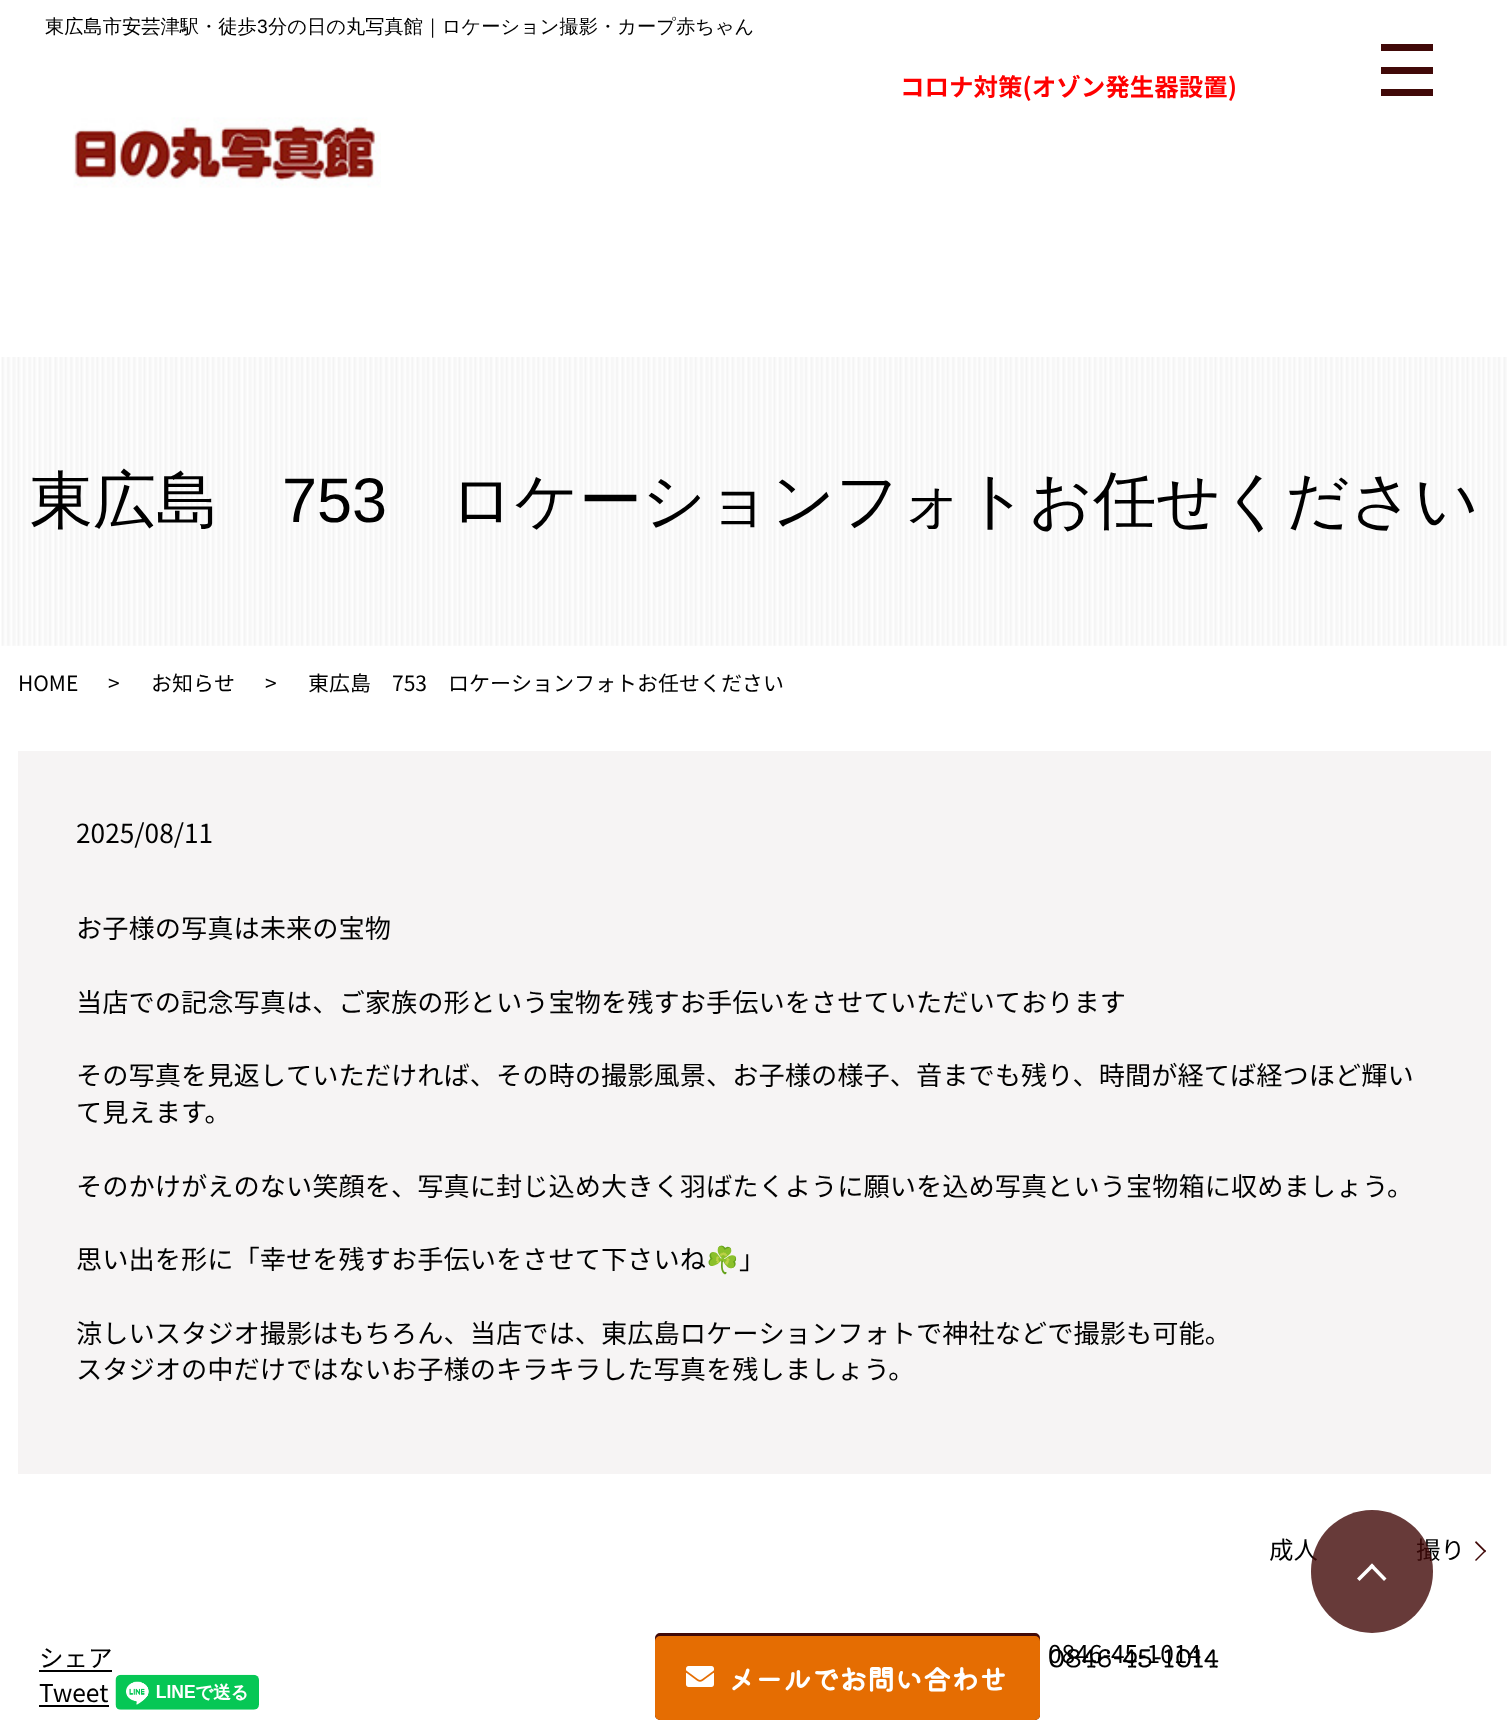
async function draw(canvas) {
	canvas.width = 1507;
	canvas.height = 1729;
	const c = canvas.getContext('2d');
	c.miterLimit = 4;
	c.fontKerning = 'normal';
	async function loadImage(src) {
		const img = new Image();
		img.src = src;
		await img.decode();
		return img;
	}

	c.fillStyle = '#fff';
	c.fillRect(0, 0, 1507, 1729);
	c.font = '500 19.25px WenQuanYi Zen Hei';
	c.fillStyle = '#000';
	c.fillText('東広島市安芸津駅・徒歩', 45, 33);
	c.font = '19.25px Liberation Sans';
	c.fillText('3', 257, 33);
	c.font = '500 19.25px WenQuanYi Zen Hei';
	c.fillText('分の日の丸写真館｜ロケーション撮影・カープ赤ちゃん', 268, 33);
	c.font = 'bold 24.5px Noto Sans JP';
	c.fillStyle = '#f00';
	c.fillText('コロナ対策(オゾン発生器設置)', 900, 96);
	for (const [x, y, w, h, color] of [
		[1381, 44, 52, 7, '#410908'],
		[1381, 67, 52, 7, '#410908'],
		[1381, 89, 52, 7, '#410908'],
	]) {
		c.fillStyle = color;
		c.fillRect(x, y, w, h);
	}
	c.drawImage(await loadImage('img1.png'), 73, 117, 308, 71);
	c.drawImage(await loadImage('img2.png'), 1, 357, 1506, 289);
	c.font = '500 63px WenQuanYi Zen Hei';
	c.fillStyle = '#000';
	c.fillText('東広島', 30, 522);
	c.font = '63px Liberation Sans';
	c.fillText('753', 282, 522);
	c.font = '500 63px WenQuanYi Zen Hei';
	c.fillText('ロケーションフォトお任せください', 450, 522);
	c.font = '21px Noto Sans JP';
	for (const [text, x, y] of [
		['HOME', 18, 691],
		['>', 108, 691],
		['お知らせ', 151, 691],
		['>', 265, 691],
		['東広島　753　ロケーションフォトお任せください', 308, 691],
	]) {
		c.fillText(text, x, y);
	}
	c.fillStyle = '#f6f4f4';
	c.fillRect(18, 751, 1473, 723);
	c.font = '26.25px Noto Sans JP';
	c.fillStyle = '#000';
	for (const [text, x, y] of [
		['2025/08/11', 76, 843],
		['お子様の写真は未来の宝物', 76, 938],
		['当店での記念写真は、ご家族の形という宝物を残すお手伝いをさせていただいております', 76, 1012],
		['その写真を見返していただければ、その時の撮影風景、お子様の様子、音までも残り、時間が経てば経つほど輝い', 76, 1085],
		['て見えます。', 76, 1122],
		['そのかけがえのない笑顔を、写真に封じ込め大きく羽ばたくように願いを込め写真という宝物箱に収めましょう。', 76, 1196],
		['思い出を形に「幸せを残すお手伝いをさせて下さいね', 76, 1269],
	]) {
		c.fillText(text, x, y);
	}
	c.font = '26.25px Noto Color Emoji';
	c.fillText('☘️', 706, 1269);
	c.font = '26.25px Noto Sans JP';
	for (const [text, x, y] of [
		['」', 739, 1269],
		['涼しいスタジオ撮影はもちろん、当店では、東広島ロケーションフォトで神社などで撮影も可能。', 76, 1343],
		['スタジオの中だけではないお子様のキラキラした写真を残しましょう。', 76, 1379],
	]) {
		c.fillText(text, x, y);
	}
	c.font = '24.5px Noto Sans JP';
	c.fillText('成人', 1269, 1559);
	c.fillText('撮り', 1416, 1559);
	c.fillStyle = '#410908';
	c.beginPath();
	c.moveTo(1476, 1541);
	c.lineTo(1486, 1551);
	c.lineTo(1485, 1552.5);
	c.lineTo(1475, 1542.5);
	c.closePath();
	c.fill();
	c.beginPath();
	c.moveTo(1486, 1551);
	c.lineTo(1476, 1561);
	c.lineTo(1475, 1560);
	c.lineTo(1485, 1550);
	c.closePath();
	c.fill();
	c.fillStyle = '#000';
	c.fillText('シェア', 39, 1667);
	c.fillRect(39, 1670, 73, 2);
	c.fillText('Tweet', 39, 1702);
	c.fillRect(39, 1705, 70, 2);
	c.drawImage(await loadImage('img3.png'), 115, 1674, 144, 36);
	c.fillStyle = '#410908cc';
	c.beginPath();
	c.roundRect(1311, 1510, 122, 123, 61);
	c.fill();
	c.fillStyle = '#fff';
	c.beginPath();
	c.moveTo(1372, 1563.5);
	c.lineTo(1386.5, 1578.5);
	c.lineTo(1384, 1581);
	c.lineTo(1369.5, 1566);
	c.closePath();
	c.fill();
	c.beginPath();
	c.moveTo(1372, 1563.5);
	c.lineTo(1374.5, 1566);
	c.lineTo(1359.5, 1581);
	c.lineTo(1357, 1578.5);
	c.closePath();
	c.fill();
	c.beginPath();
	c.roundRect(657, 1635, 381, 83, 3);
	c.strokeStyle = '#410908';
	c.lineWidth = 4;
	c.stroke();
	c.fillStyle = '#000';
	c.fillText('0846-45-1014', 1048, 1663);
	c.font = '500 24.5px Kiwi Maru';
	c.fillText('0846-45-1014', 1048, 1667);
	c.fillStyle = '#e56d02';
	c.beginPath();
	c.roundRect(656, 1637, 383, 82, 4);
	c.fill();
	c.strokeStyle = '#e56d02';
	c.lineWidth = 2;
	c.stroke();
	c.drawImage(await loadImage('img4.png'), 686, 1666, 28, 21);
	c.font = 'bold 28px Kiwi Maru';
	c.fillStyle = '#fff';
	c.fillText('メールでお問い合わせ', 727, 1690);
}

draw(document.querySelector('canvas'));
